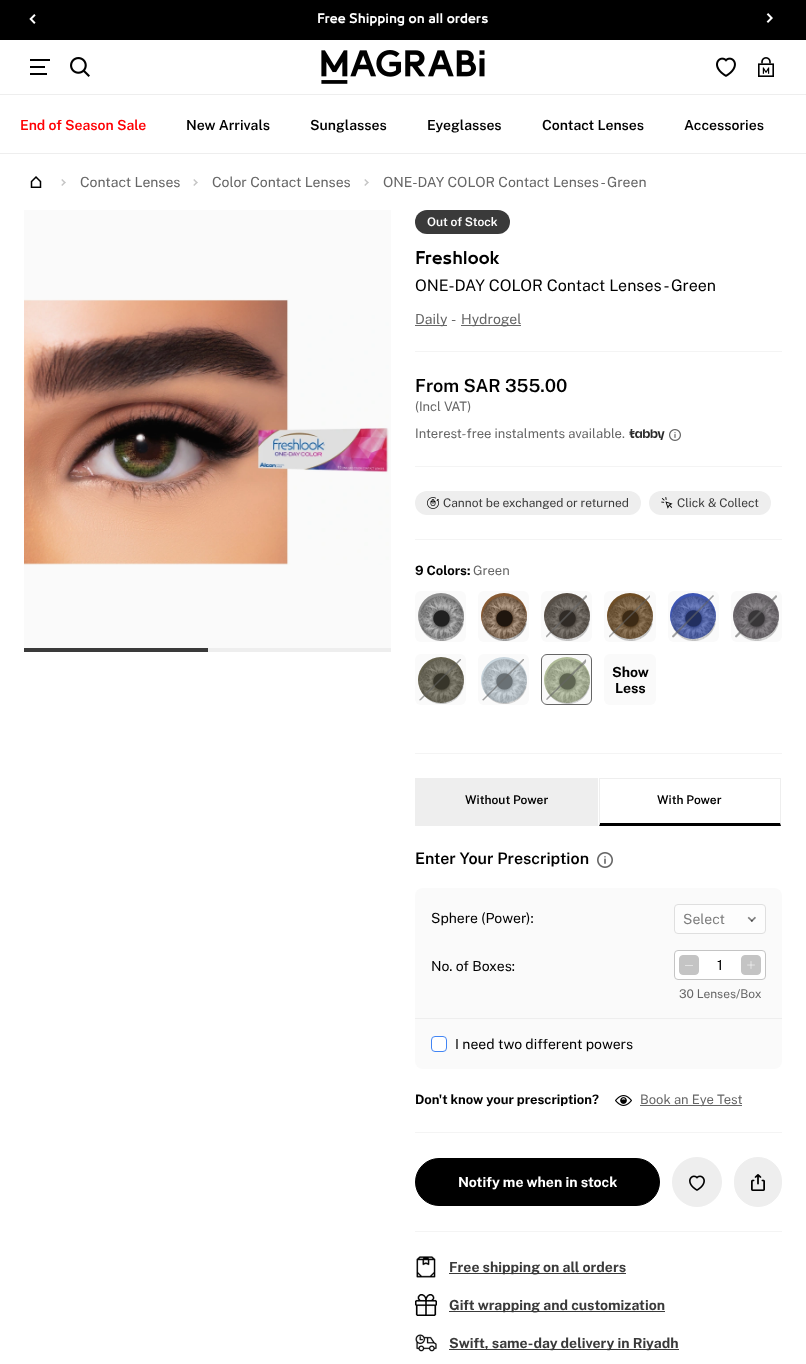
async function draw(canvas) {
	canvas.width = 806;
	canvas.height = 1364;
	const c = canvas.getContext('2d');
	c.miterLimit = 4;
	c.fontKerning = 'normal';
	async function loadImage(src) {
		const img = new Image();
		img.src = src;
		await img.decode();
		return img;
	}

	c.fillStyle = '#fff';
	c.fillRect(0, 0, 806, 1364);
	c.fillStyle = '#000';
	c.fillRect(0, 0, 806, 40);
	c.drawImage(await loadImage('img1.png'), 29, 14, 7, 10);
	c.font = 'bold 12px "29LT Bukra"';
	c.fillStyle = '#fff';
	c.fillText('Free Shipping on all orders', 317, 23);
	c.drawImage(await loadImage('img2.png'), 766, 13, 7, 10);
	for (const [x, y, w, h, color] of [
		[30, 59, 20, 2, '#000'],
		[30, 73, 17, 2, '#000'],
		[30, 66, 15, 2, '#000'],
	]) {
		c.fillStyle = color;
		c.fillRect(x, y, w, h);
	}
	c.drawImage(await loadImage('img3.png'), 70, 57, 20, 20);
	c.drawImage(await loadImage('img4.png'), 321, 50, 164, 34);
	c.drawImage(await loadImage('img5.png'), 716, 57, 20, 20);
	c.drawImage(await loadImage('img6.png'), 758, 57, 16, 20);
	c.fillStyle = '#eee';
	c.fillRect(0, 94, 806, 1);
	c.fillRect(0, 153, 806, 1);
	c.font = '600 14px Public Sans';
	c.fillStyle = '#ff0004';
	c.fillText('End of Season Sale', 20, 130);
	c.fillStyle = '#000';
	for (const [text, x, y] of [
		['New Arrivals', 186, 130],
		['Sunglasses', 310, 130],
		['Eyeglasses', 427, 130],
		['Contact Lenses', 542, 130],
		['Accessories', 684, 130],
	]) {
		c.fillText(text, x, y);
	}
	c.drawImage(await loadImage('img7.png'), 30, 176, 12, 12);
	c.drawImage(await loadImage('img8.png'), 61, 179, 5, 7);
	c.font = '14px Public Sans';
	c.fillStyle = '#666';
	c.fillText('Contact Lenses', 80, 187);
	c.drawImage(await loadImage('img8.png'), 193, 179, 5, 7);
	c.fillText('Color Contact Lenses', 212, 187);
	c.drawImage(await loadImage('img8.png'), 364, 179, 5, 7);
	c.fillText('ONE-DAY COLOR Contact Lenses - Green', 383, 187);
	c.fillStyle = '#fafafa';
	c.fillRect(24, 210, 367, 438);
	c.drawImage(await loadImage('img9.png'), 24, 299, 365, 266);
	for (const [x, y, w, h, color] of [
		[24, 648, 184, 4, '#3a3a3a'],
		[208, 648, 183, 4, '#eee'],
		[415, 351, 367, 1, '#f4f4f4'],
	]) {
		c.fillStyle = color;
		c.fillRect(x, y, w, h);
	}
	c.fillStyle = '#3a3a3a';
	c.beginPath();
	c.roundRect(415, 210, 95, 24, 12);
	c.fill();
	c.font = '600 12px Public Sans';
	c.fillStyle = '#fff';
	c.fillText('Out of Stock', 427, 226);
	c.font = 'bold 16px "29LT Bukra"';
	c.fillStyle = '#000';
	c.fillText('Freshlook', 415, 264);
	c.font = '16px Public Sans';
	c.fillText('ONE-DAY COLOR Contact Lenses - Green', 415, 291);
	c.fillStyle = '#666';
	c.fillRect(415, 325, 32, 1);
	c.font = '14px Public Sans';
	c.fillText('Daily', 415, 324);
	c.fillText('-', 451, 324);
	c.fillRect(461, 325, 60, 1);
	c.fillText('Hydrogel', 461, 324);
	c.fillStyle = '#f4f4f4';
	c.fillRect(415, 466, 367, 1);
	c.font = '600 18px Public Sans';
	c.fillStyle = '#000';
	c.fillText('From SAR 355.00', 415, 392);
	c.font = '13px Public Sans';
	c.fillStyle = '#666';
	c.fillText('(Incl VAT)', 415, 411);
	c.fillText('Interest-free instalments available.', 415, 438);
	c.drawImage(await loadImage('img10.png'), 629, 429, 36, 11);
	c.drawImage(await loadImage('img11.png'), 669, 429, 12, 12);
	c.fillStyle = '#f4f4f4';
	c.fillRect(415, 539, 367, 1);
	c.fillStyle = '#eee';
	c.beginPath();
	c.roundRect(415, 491, 226, 24, 12);
	c.fill();
	c.drawImage(await loadImage('img12.png'), 427, 497, 12, 12);
	c.font = '12px Public Sans';
	c.fillStyle = '#3a3a3a';
	c.fillText('Cannot be exchanged or returned', 443, 507);
	c.fillStyle = '#eee';
	c.beginPath();
	c.roundRect(649, 491, 122, 24, 12);
	c.fill();
	c.drawImage(await loadImage('img13.png'), 661, 497, 12, 12);
	c.fillStyle = '#3a3a3a';
	c.fillText('Click & Collect', 677, 507);
	c.fillStyle = '#f4f4f4';
	c.fillRect(415, 753, 367, 1);
	c.font = 'bold 13px Public Sans';
	c.fillStyle = '#000';
	c.fillText('9 Colors:', 415, 575);
	c.font = '13px Public Sans';
	c.fillStyle = '#666';
	c.fillText('Green', 473, 575);
	c.fillStyle = '#fafafa';
	c.beginPath();
	c.roundRect(415, 591, 51, 51, 6);
	c.fill();
	c.fillStyle = '#909090';
	c.beginPath();
	c.arc(441, 616, 23, 0, 2 * Math.PI);
	c.fill();
	c.drawImage(await loadImage('img14.png'), 419, 596, 45, 45);
	c.fillStyle = '#fafafa';
	c.beginPath();
	c.roundRect(478, 591, 51, 51, 6);
	c.fill();
	c.fillStyle = '#875a33';
	c.beginPath();
	c.arc(504, 616, 23, 0, 2 * Math.PI);
	c.fill();
	c.drawImage(await loadImage('img15.png'), 482, 596, 45, 45);
	c.fillStyle = '#fafafa';
	c.beginPath();
	c.roundRect(541, 591, 51, 51, 6);
	c.fill();
	c.fillStyle = '#584f46';
	c.beginPath();
	c.arc(567, 616, 23, 0, 2 * Math.PI);
	c.fill();
	c.drawImage(await loadImage('img16.png'), 545, 596, 45, 45);
	c.fillStyle = '#66666699';
	c.beginPath();
	c.moveTo(546, 636);
	c.lineTo(586, 595);
	c.lineTo(587, 596);
	c.lineTo(587, 597);
	c.lineTo(547, 637);
	c.bezierCurveTo(547, 638, 546, 637, 546, 636);
	c.closePath();
	c.fill();
	c.fillStyle = '#fafafa';
	c.beginPath();
	c.roundRect(604, 591, 52, 51, 6);
	c.fill();
	c.fillStyle = '#704e25';
	c.beginPath();
	c.arc(630, 616, 23, 0, 2 * Math.PI);
	c.fill();
	c.drawImage(await loadImage('img17.png'), 608, 596, 45, 45);
	c.fillStyle = '#66666699';
	c.beginPath();
	c.moveTo(609, 636);
	c.lineTo(650, 595);
	c.lineTo(650, 596);
	c.lineTo(650, 597);
	c.lineTo(610, 637);
	c.bezierCurveTo(610, 638, 609, 637, 609, 636);
	c.closePath();
	c.fill();
	c.fillStyle = '#fafafa';
	c.beginPath();
	c.roundRect(668, 591, 51, 51, 6);
	c.fill();
	c.fillStyle = '#3e56b3';
	c.beginPath();
	c.arc(693, 616, 23, 0, 2 * Math.PI);
	c.fill();
	c.drawImage(await loadImage('img18.png'), 671, 596, 45, 45);
	c.fillStyle = '#66666699';
	c.beginPath();
	c.moveTo(672, 636);
	c.lineTo(713, 595);
	c.lineTo(714, 596);
	c.lineTo(713, 597);
	c.lineTo(674, 637);
	c.bezierCurveTo(673, 638, 672, 637, 672, 636);
	c.closePath();
	c.fill();
	c.fillStyle = '#fafafa';
	c.beginPath();
	c.roundRect(731, 591, 51, 51, 6);
	c.fill();
	c.fillStyle = '#696469';
	c.beginPath();
	c.arc(756, 616, 23, 0, 2 * Math.PI);
	c.fill();
	c.drawImage(await loadImage('img19.png'), 734, 596, 45, 45);
	c.fillStyle = '#66666699';
	c.beginPath();
	c.moveTo(735, 636);
	c.lineTo(776, 595);
	c.lineTo(777, 596);
	c.lineTo(777, 597);
	c.lineTo(737, 637);
	c.bezierCurveTo(736, 638, 735, 637, 735, 636);
	c.closePath();
	c.fill();
	c.fillStyle = '#fafafa';
	c.beginPath();
	c.roundRect(415, 654, 51, 51, 6);
	c.fill();
	c.fillStyle = '#66624e';
	c.beginPath();
	c.arc(441, 680, 23, 0, 2 * Math.PI);
	c.fill();
	c.drawImage(await loadImage('img20.png'), 419, 659, 45, 45);
	c.fillStyle = '#66666699';
	c.beginPath();
	c.moveTo(420, 699);
	c.lineTo(460, 659);
	c.lineTo(461, 659);
	c.lineTo(461, 660);
	c.lineTo(421, 700);
	c.bezierCurveTo(420, 701, 419, 700, 419, 700);
	c.closePath();
	c.fill();
	c.fillStyle = '#fafafa';
	c.beginPath();
	c.roundRect(478, 654, 51, 51, 6);
	c.fill();
	c.fillStyle = '#c8d5dd';
	c.beginPath();
	c.arc(504, 680, 23, 0, 2 * Math.PI);
	c.fill();
	c.drawImage(await loadImage('img21.png'), 482, 659, 45, 45);
	c.fillStyle = '#66666699';
	c.beginPath();
	c.moveTo(483, 699);
	c.lineTo(523, 659);
	c.lineTo(524, 659);
	c.lineTo(524, 660);
	c.lineTo(484, 700);
	c.bezierCurveTo(484, 701, 483, 700, 482, 700);
	c.closePath();
	c.fill();
	c.fillStyle = '#fafafa';
	c.beginPath();
	c.roundRect(541.5, 654.5, 50, 50, 5.5);
	c.fill();
	c.strokeStyle = '#666';
	c.stroke();
	c.fillStyle = '#b2be9a';
	c.beginPath();
	c.arc(567, 680, 23, 0, 2 * Math.PI);
	c.fill();
	c.drawImage(await loadImage('img22.png'), 545, 659, 45, 45);
	c.fillStyle = '#66666699';
	c.beginPath();
	c.moveTo(547, 698);
	c.lineTo(585, 660);
	c.bezierCurveTo(585, 659, 586, 659, 586, 660);
	c.bezierCurveTo(587, 664, 582, 665, 580, 668);
	c.lineTo(547, 700);
	c.bezierCurveTo(546, 700, 546, 699, 547, 698);
	c.closePath();
	c.fill();
	c.fillStyle = '#fafafa';
	c.beginPath();
	c.roundRect(604, 654, 52, 51, 6);
	c.fill();
	c.font = 'bold 14px Public Sans';
	c.fillStyle = '#000';
	c.fillText('Show', 612, 677);
	c.fillText('Less', 615, 693);
	for (const [x, y, w, h, color] of [
		[416, 779, 181, 44, '#eee'],
		[415, 778, 183, 1, '#eee'],
		[597, 778, 1, 48, '#eee'],
		[415, 823, 183, 3, '#eee'],
		[415, 778, 1, 48, '#eee'],
	]) {
		c.fillStyle = color;
		c.fillRect(x, y, w, h);
	}
	c.font = '600 12px Public Sans';
	c.fillStyle = '#000';
	c.fillText('Without Power', 465, 804);
	c.fillStyle = '#eee';
	c.fillRect(599, 778, 182, 1);
	c.beginPath();
	c.moveTo(781, 778);
	c.lineTo(781, 826);
	c.lineTo(780, 823);
	c.lineTo(780, 779);
	c.closePath();
	c.fill();
	c.fillStyle = '#000';
	c.beginPath();
	c.moveTo(781, 826);
	c.lineTo(599, 826);
	c.lineTo(600, 823);
	c.lineTo(780, 823);
	c.closePath();
	c.fill();
	c.fillStyle = '#eee';
	c.beginPath();
	c.moveTo(599, 826);
	c.lineTo(599, 778);
	c.lineTo(600, 779);
	c.lineTo(600, 823);
	c.closePath();
	c.fill();
	c.fillStyle = '#000';
	c.fillText('With Power', 657, 804);
	c.fillStyle = '#f4f4f4';
	c.fillRect(415, 1132, 367, 1);
	c.font = '600 16px Public Sans';
	c.fillStyle = '#000';
	c.fillText('Enter Your Prescription', 415, 864);
	c.drawImage(await loadImage('img23.png'), 597, 852, 16, 16);
	c.fillStyle = '#fafafa';
	c.beginPath();
	c.roundRect(415, 888, 367, 181, 8);
	c.fill();
	c.font = '14px Public Sans';
	c.fillStyle = '#000';
	c.fillText('Sphere (Power):', 431, 923);
	c.fillStyle = '#fdfdfd';
	c.beginPath();
	c.roundRect(674.5, 904.5, 91, 29, 3.5);
	c.fill();
	c.strokeStyle = '#dfdfdf';
	c.stroke();
	c.fillStyle = '#7d7d7d';
	c.fillText('Select', 683, 924);
	c.drawImage(await loadImage('img24.png'), 747, 916, 9, 6);
	c.fillStyle = '#000';
	c.fillText('No. of Boxes:', 431, 971);
	c.fillStyle = '#fff';
	c.beginPath();
	c.roundRect(674.5, 950.5, 91, 29, 3.5);
	c.fill();
	c.strokeStyle = '#c4c4c4';
	c.stroke();
	c.fillStyle = '#c4c4c4';
	c.beginPath();
	c.roundRect(679.5, 955.5, 19, 19, 3.5);
	c.fill();
	c.stroke();
	c.fillStyle = '#e2e2e2';
	c.fillRect(685, 965, 8, 1);
	c.fillStyle = '#000';
	c.fillText('1', 717, 970);
	c.fillStyle = '#c4c4c4';
	c.beginPath();
	c.roundRect(741.5, 955.5, 19, 19, 3.5);
	c.fill();
	c.stroke();
	c.drawImage(await loadImage('img25.png'), 747, 961, 8, 8);
	c.font = '12px Public Sans';
	c.fillStyle = '#666';
	c.fillText('30 Lenses/Box', 679, 998);
	c.fillStyle = '#eee';
	c.fillRect(415, 1018, 367, 1);
	c.fillStyle = '#fff';
	c.beginPath();
	c.roundRect(431.5, 1036.5, 15, 15, 3.5);
	c.fill();
	c.strokeStyle = '#4285f4';
	c.stroke();
	c.font = '14px Public Sans';
	c.fillStyle = '#000';
	c.fillText('I need two different powers', 455, 1049);
	c.font = 'bold 13px Public Sans';
	c.fillText('Don\'t know your prescription?', 415, 1104);
	c.drawImage(await loadImage('img26.png'), 615, 1095, 17, 11);
	c.fillStyle = '#666';
	c.fillRect(640, 1105, 102, 1);
	c.font = '13px Public Sans';
	c.fillText('Book an Eye Test', 640, 1104);
	c.fillStyle = '#f4f4f4';
	c.fillRect(415, 1231, 367, 1);
	c.fillStyle = '#000';
	c.beginPath();
	c.roundRect(415.5, 1158.5, 244, 47, 23.5);
	c.fill();
	c.strokeStyle = '#000';
	c.stroke();
	c.font = 'bold 14px Public Sans';
	c.fillStyle = '#fff';
	c.fillText('Notify me when in stock', 458, 1187);
	c.fillStyle = '#eee';
	c.beginPath();
	c.arc(697, 1182, 24.5, 0, 2 * Math.PI);
	c.fill();
	c.strokeStyle = '#eee';
	c.stroke();
	c.drawImage(await loadImage('img27.png'), 689, 1175, 16, 16);
	c.beginPath();
	c.roundRect(734.5, 1157.5, 47, 49, 23.5);
	c.fill();
	c.stroke();
	c.drawImage(await loadImage('img28.png'), 751, 1174, 14, 17);
	c.drawImage(await loadImage('img29.png'), 416, 1256, 20, 22);
	c.fillStyle = '#3a3a3a';
	c.fillRect(449, 1273, 177, 1);
	c.fillText('Free shipping on all orders', 449, 1272);
	c.drawImage(await loadImage('img30.png'), 415, 1294, 22, 22);
	c.fillRect(449, 1311, 216, 1);
	c.fillText('Gift wrapping and customization', 449, 1310);
	c.drawImage(await loadImage('img31.png'), 415, 1334, 22, 18);
	c.fillRect(449, 1349, 230, 1);
	c.fillText('Swift, same-day delivery in Riyadh', 449, 1348);
}

draw(document.querySelector('canvas'));
